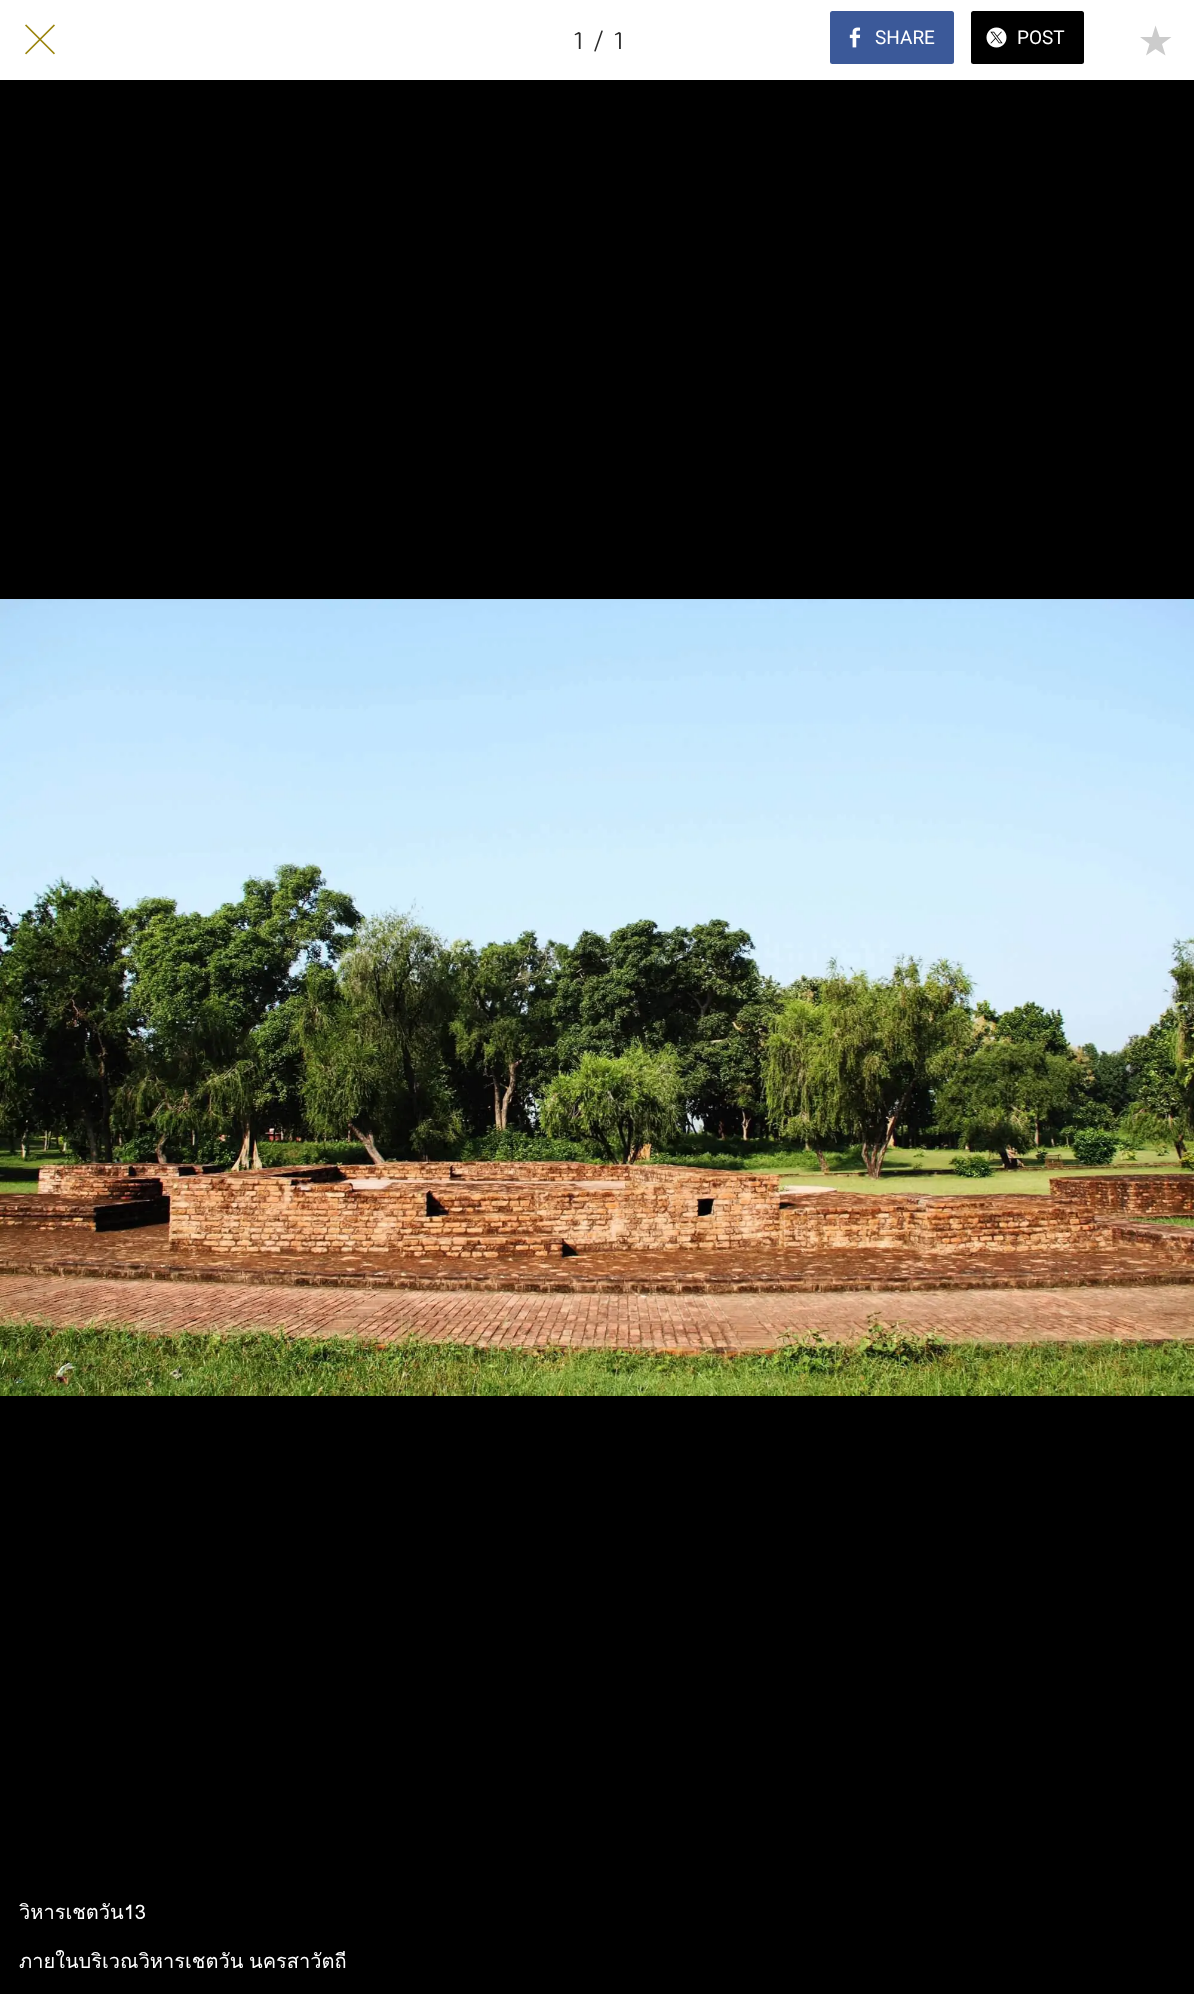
async function draw(canvas) {
	canvas.width = 1194;
	canvas.height = 1994;
	const c = canvas.getContext('2d');
	c.miterLimit = 4;
	c.fontKerning = 'normal';
	async function loadImage(src) {
		const img = new Image();
		img.src = src;
		await img.decode();
		return img;
	}

	c.fillStyle = '#000';
	c.fillRect(0, 0, 1194, 1994);
	c.fillStyle = '#fff';
	c.fillRect(0, 0, 1194, 80);
	c.drawImage(await loadImage('img1.png'), 25, 24, 30, 31);
	c.font = '28px Athiti';
	c.fillStyle = '#292929';
	c.fillText('1 / 1', 573, 49);
	c.fillStyle = '#3b5999';
	c.beginPath();
	c.roundRect(830, 11, 124, 53, 2.5);
	c.fill();
	c.drawImage(await loadImage('img2.png'), 849, 27, 12, 21);
	c.font = '19px Roboto';
	c.fillStyle = '#fff';
	c.fillText('SHARE', 875, 44);
	c.fillStyle = '#000';
	c.beginPath();
	c.roundRect(971, 11, 113, 53, 2.5);
	c.fill();
	c.drawImage(await loadImage('img3.png'), 986, 27, 21, 21);
	c.fillStyle = '#fff';
	c.fillText('POST', 1017, 44);
	c.fillStyle = '#ccc';
	c.beginPath();
	c.moveTo(1171.5, 37);
	c.lineTo(1159.5, 37);
	c.lineTo(1155.5, 25.5);
	c.lineTo(1152, 37);
	c.lineTo(1140, 37);
	c.lineTo(1149.5, 44);
	c.lineTo(1146, 55.5);
	c.lineTo(1155.5, 49);
	c.lineTo(1165.5, 55.5);
	c.lineTo(1162, 44);
	c.closePath();
	c.fill();
	c.drawImage(await loadImage('img4.png'), 0, 599, 1194, 797);
	c.font = '20px Loma';
	c.fillStyle = '#fff';
	c.fillText('วิหารเชตวัน13', 19, 1919);
	c.wordSpacing = '-1px';
	c.fillText('ภายในบริเวณวิหารเชตวัน นครสาวัตถี', 19, 1968);
}

draw(document.querySelector('canvas'));
